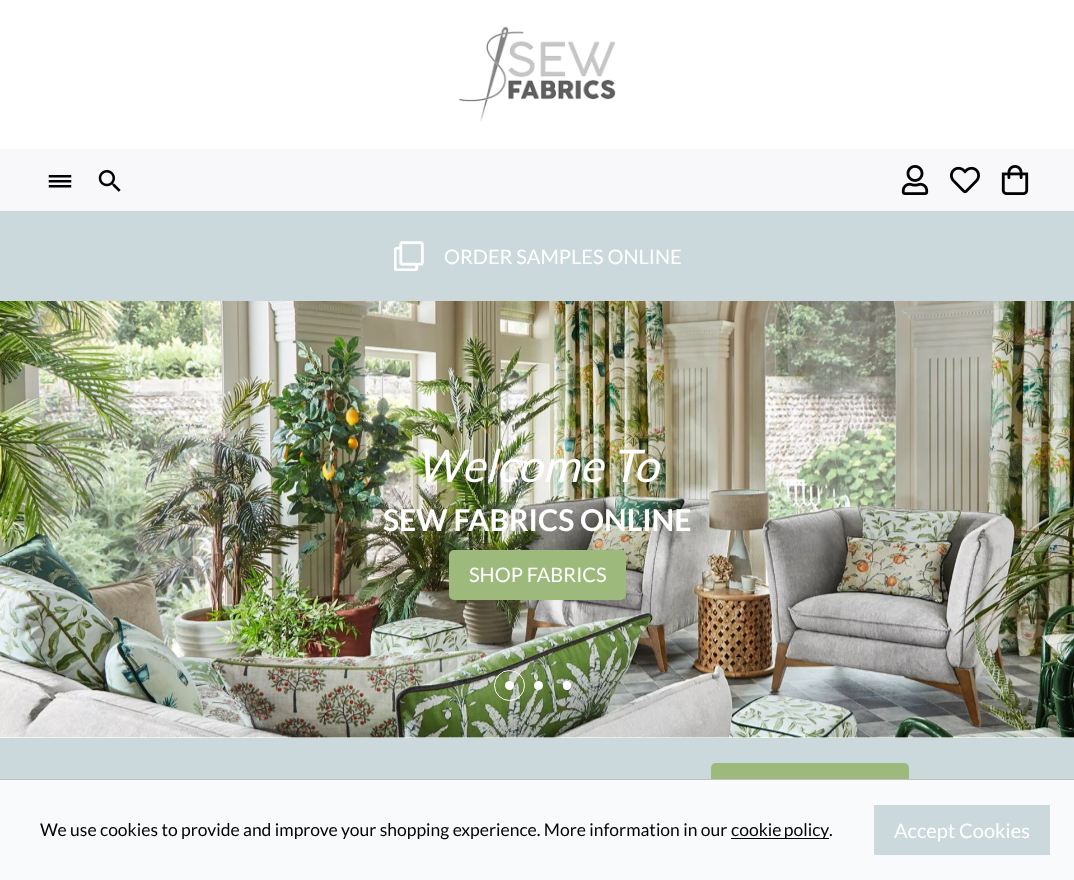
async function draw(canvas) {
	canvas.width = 1074;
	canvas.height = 880;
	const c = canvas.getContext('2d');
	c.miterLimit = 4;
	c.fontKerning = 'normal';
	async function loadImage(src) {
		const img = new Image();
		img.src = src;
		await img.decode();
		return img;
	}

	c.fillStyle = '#fff';
	c.fillRect(0, 0, 1074, 880);
	c.drawImage(await loadImage('img1.png'), 458, 26, 158, 96);
	c.fillStyle = '#f8f8fa';
	c.fillRect(0, 149, 1074, 62);
	c.drawImage(await loadImage('img2.png'), 48, 175, 24, 13);
	c.drawImage(await loadImage('img3.png'), 98, 170, 23, 22);
	c.drawImage(await loadImage('img4.png'), 901, 165, 28, 30);
	c.drawImage(await loadImage('img5.png'), 950, 166, 30, 28);
	c.drawImage(await loadImage('img6.png'), 1001, 165, 28, 30);
	c.fillStyle = '#ccd9dc';
	c.fillRect(0, 211, 1074, 90);
	c.drawImage(await loadImage('img7.png'), 394, 241, 30, 30);
	c.font = '20px Lato';
	c.fillStyle = '#fff';
	c.fillText('ORDER SAMPLES ONLINE', 444, 264);
	c.drawImage(await loadImage('img8.png'), 0, 301, 1074, 437);
	c.font = 'italic 45px Lato';
	c.fillText('Welcome To', 416, 482);
	c.font = 'bold 30px Lato';
	c.fillText('SEW FABRICS ONLINE', 383, 531);
	c.fillStyle = '#9db97b';
	c.beginPath();
	c.roundRect(449, 550, 177, 50, 5);
	c.fill();
	c.font = '20px Lato';
	c.fillStyle = '#fff';
	c.fillText('SHOP FABRICS', 469, 582);
	c.beginPath();
	c.arc(509.5, 685.5, 4.5, 0, 2 * Math.PI);
	c.fill();
	c.beginPath();
	c.arc(509.5, 685.5, 15, 0, 2 * Math.PI);
	c.strokeStyle = '#fff';
	c.stroke();
	c.beginPath();
	c.arc(538.5, 685.5, 4.5, 0, 2 * Math.PI);
	c.fill();
	c.beginPath();
	c.roundRect(563, 681, 8, 9, 4);
	c.fill();
	c.fillStyle = '#ccd9dc';
	c.fillRect(0, 738, 1074, 41);
	c.fillStyle = '#9db97b';
	c.beginPath();
	c.roundRect(711, 763, 198, 50, 5);
	c.fill();
	c.fillStyle = '#f9fafb';
	c.fillRect(0, 780, 1074, 100);
	c.fillStyle = '#bfbdbd';
	c.fillRect(0, 779, 1074, 1);
	c.font = '17.5px Lato';
	c.fillStyle = '#000';
	c.fillText('We use cookies to provide and improve your shopping experience. More information in our', 40, 836);
	c.fillRect(731, 838, 98, 1);
	c.wordSpacing = '-1px';
	c.fillText('cookie policy', 731, 836);
	c.wordSpacing = '0px';
	c.fillText('.', 829, 836);
	c.fillStyle = '#ccd9dc';
	c.fillRect(874, 805, 176, 50);
	c.font = '20px Lato';
	c.fillStyle = '#fff';
	c.fillText('Accept Cookies', 894, 838);
}

draw(document.querySelector('canvas'));
